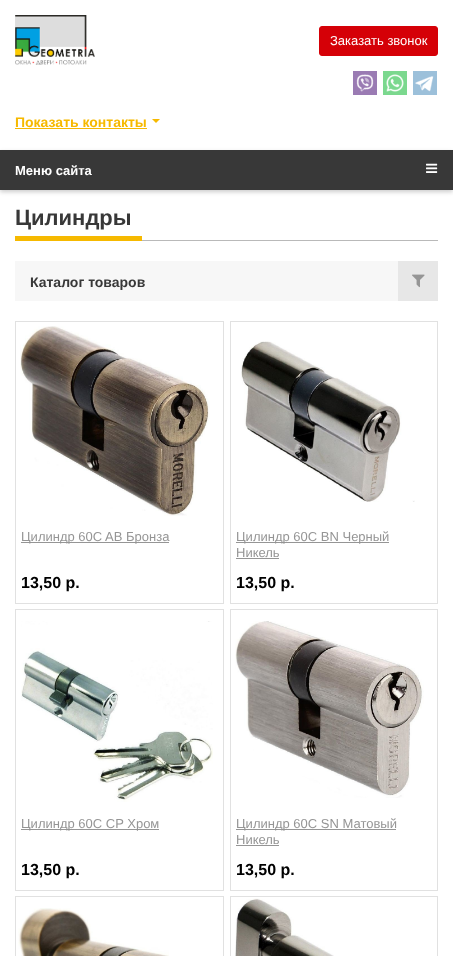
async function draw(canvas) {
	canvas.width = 453;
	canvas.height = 956;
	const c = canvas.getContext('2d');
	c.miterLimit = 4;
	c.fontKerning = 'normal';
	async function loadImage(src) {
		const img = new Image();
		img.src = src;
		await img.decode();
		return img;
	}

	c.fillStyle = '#fff';
	c.fillRect(0, 0, 453, 956);
	c.drawImage(await loadImage('img1.png'), 15, 15, 80, 50);
	c.fillStyle = '#d50007';
	c.beginPath();
	c.roundRect(319.5, 26.5, 118, 29, 2.5);
	c.fill();
	c.strokeStyle = '#d50007';
	c.stroke();
	c.font = '13px Liberation Sans';
	c.fillStyle = '#fff';
	c.fillText('Заказать звонок', 330, 45);
	c.drawImage(await loadImage('img2.png'), 353, 71, 24, 24);
	c.drawImage(await loadImage('img3.png'), 383, 71, 24, 24);
	c.drawImage(await loadImage('img4.png'), 413, 71, 24, 24);
	c.font = 'bold 14px Liberation Sans';
	c.fillStyle = '#f6b900';
	c.fillText('Показать контакты', 15, 127);
	c.fillRect(15, 128, 132, 1);
	c.beginPath();
	c.moveTo(152, 119);
	c.lineTo(160, 119);
	c.lineTo(156, 123);
	c.closePath();
	c.fill();
	c.fillStyle = '#00000033';
	c.filter = 'blur(2px)';
	c.beginPath();
	c.rect(0, 152, 453, 40);
	c.fill();
	c.filter = 'none';
	c.fillStyle = '#383838';
	c.fillRect(0, 150, 453, 40);
	c.font = 'bold 13px Liberation Sans';
	c.fillStyle = '#fff';
	c.fillText('Меню сайта', 15, 175);
	c.drawImage(await loadImage('img5.png'), 426, 163, 12, 10);
	c.fillStyle = '#b9b9b9';
	c.fillRect(142, 240, 296, 1);
	c.font = 'bold 22px Liberation Sans';
	c.fillStyle = '#383838';
	c.fillText('Цилиндры', 15, 225);
	c.fillStyle = '#f6b900';
	c.fillRect(15, 236, 127, 5);
	c.fillStyle = '#f7f7f7';
	c.fillRect(15, 261, 383, 40);
	c.font = 'bold 14px Liberation Sans';
	c.fillStyle = '#383838';
	c.fillText('Каталог товаров', 30, 287);
	c.fillStyle = '#e7e7e7';
	c.fillRect(398, 261, 40, 40);
	c.drawImage(await loadImage('img6.png'), 412, 274, 13, 14);
	c.strokeStyle = '#e1e1e1';
	c.strokeRect(15.5, 321.5, 208, 282);
	c.drawImage(await loadImage('img7.png'), 20, 326, 190, 190);
	c.fillStyle = '#959595';
	c.fillRect(21, 542, 148, 1);
	c.font = '13px Liberation Sans';
	c.fillText('Цилиндр 60C AB Бронза', 21, 541);
	c.font = 'bold 16px Liberation Sans';
	c.fillStyle = '#000';
	c.fillText('13,50 р.', 21, 588);
	c.strokeRect(230.5, 321.5, 207, 282);
	c.drawImage(await loadImage('img8.png'), 241, 341, 174, 161);
	c.fillStyle = '#959595';
	c.fillRect(236, 542, 153, 1);
	c.font = '13px Liberation Sans';
	c.fillText('Цилиндр 60C BN Черный', 236, 541);
	c.fillText('Никель', 236, 557);
	c.fillRect(236, 558, 43, 1);
	c.font = 'bold 16px Liberation Sans';
	c.fillStyle = '#000';
	c.fillText('13,50 р.', 236, 588);
	c.strokeRect(15.5, 609.5, 208, 281);
	c.drawImage(await loadImage('img9.png'), 21, 621, 192, 181);
	c.fillStyle = '#959595';
	c.fillRect(21, 829, 138, 1);
	c.font = '13px Liberation Sans';
	c.fillText('Цилиндр 60C CP Хром', 21, 828);
	c.font = 'bold 16px Liberation Sans';
	c.fillStyle = '#000';
	c.fillText('13,50 р.', 21, 875);
	c.strokeRect(230.5, 609.5, 207, 281);
	c.drawImage(await loadImage('img10.png'), 235, 621, 189, 177);
	c.fillStyle = '#959595';
	c.fillRect(236, 829, 160, 1);
	c.font = '13px Liberation Sans';
	c.fillText('Цилиндр 60C SN Матовый', 236, 828);
	c.fillText('Никель', 236, 844);
	c.fillRect(236, 845, 43, 1);
	c.font = 'bold 16px Liberation Sans';
	c.fillStyle = '#000';
	c.fillText('13,50 р.', 236, 875);
	c.strokeRect(15.5, 896.5, 208, 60);
	c.drawImage(await loadImage('img11.png'), 18, 908, 151, 48);
	c.strokeRect(230.5, 896.5, 207, 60);
	c.drawImage(await loadImage('img12.png'), 235, 898, 99, 58);
}

draw(document.querySelector('canvas'));
